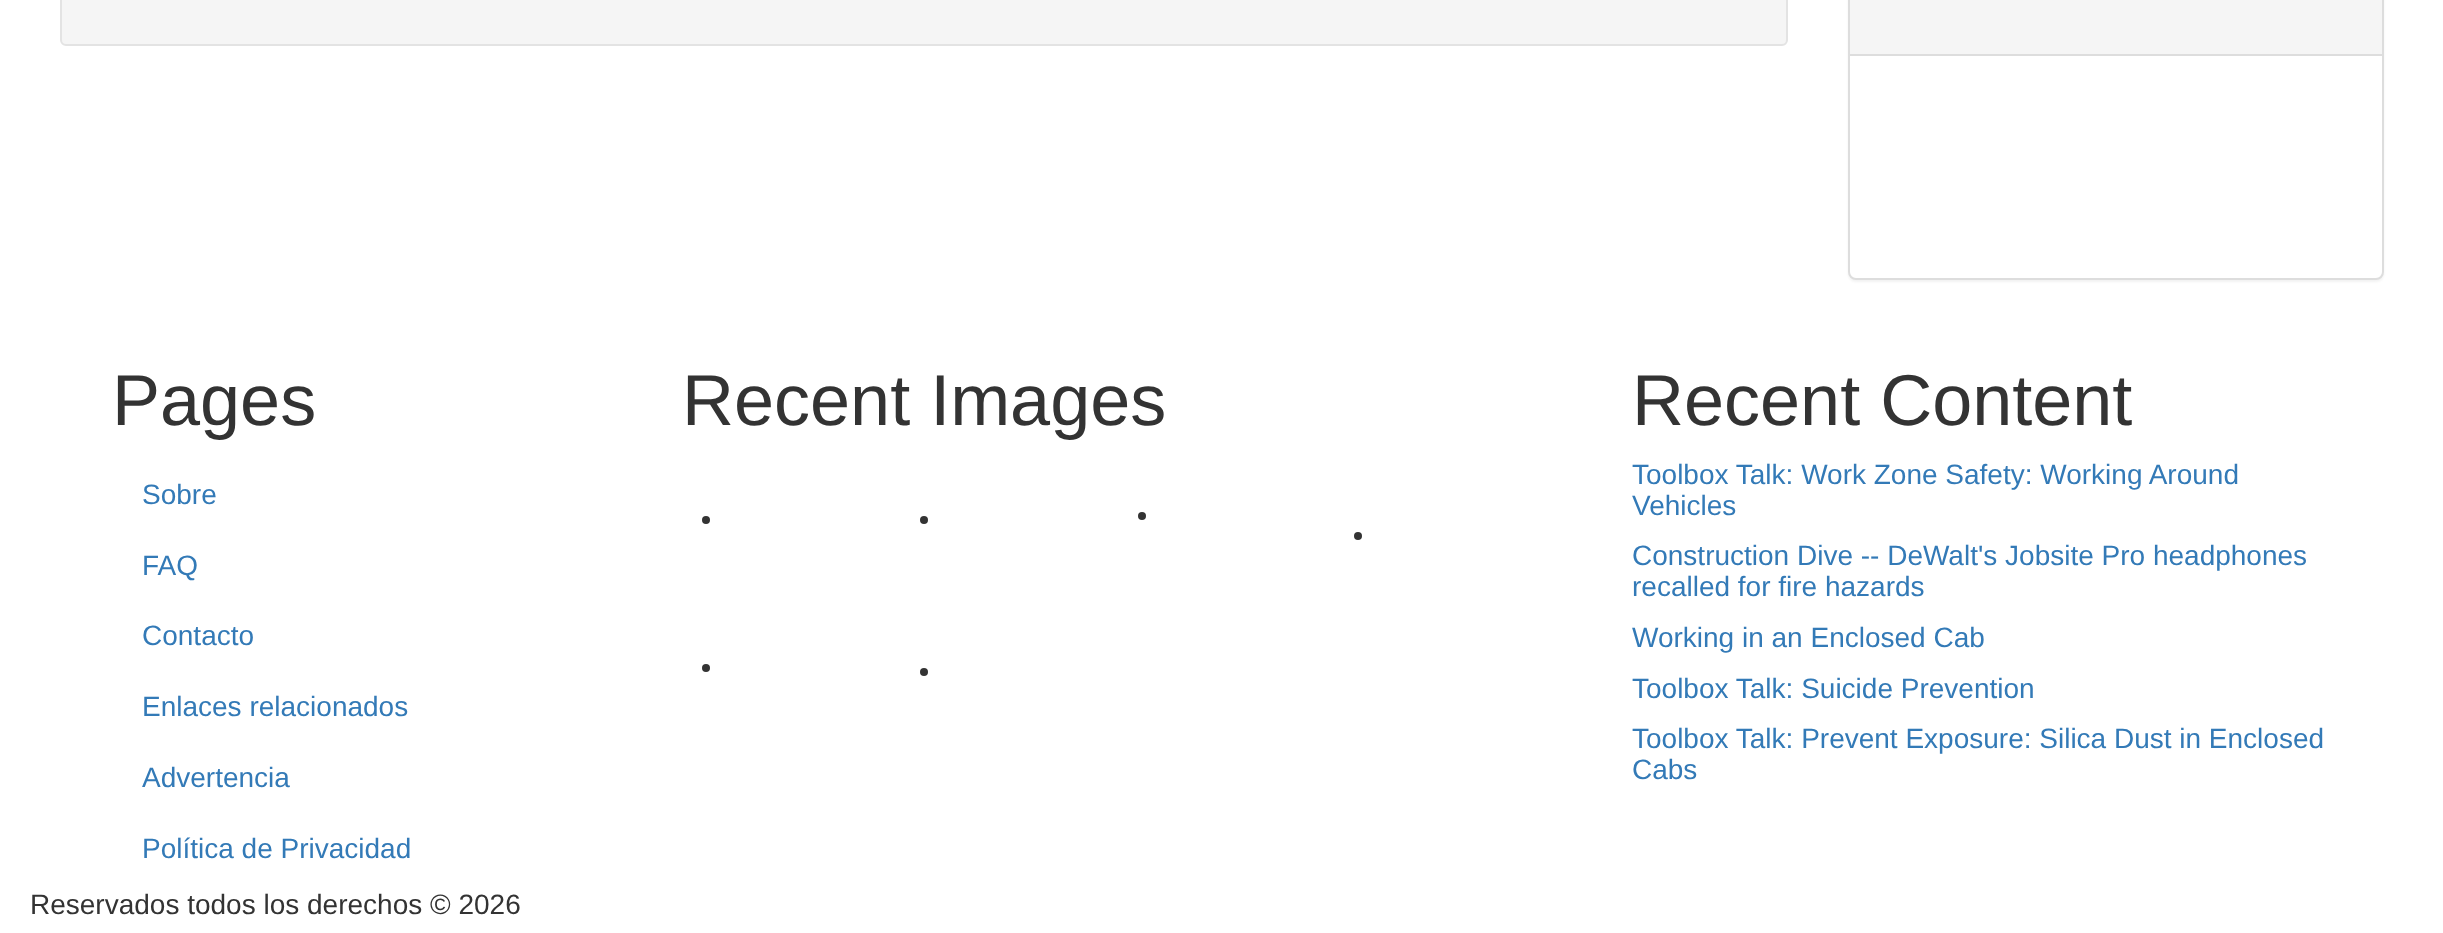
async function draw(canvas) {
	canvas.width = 2443;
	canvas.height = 933;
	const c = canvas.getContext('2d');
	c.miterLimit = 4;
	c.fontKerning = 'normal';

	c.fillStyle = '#fff';
	c.fillRect(0, 0, 2443, 933);
	c.fillStyle = '#f5f5f5';
	c.beginPath();
	c.roundRect(61, -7, 1726, 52, 5);
	c.fill();
	c.strokeStyle = '#e3e3e3';
	c.lineWidth = 2;
	c.stroke();
	c.fillStyle = '#0000000d';
	c.filter = 'blur(1px)';
	c.beginPath();
	c.roundRect(1848, -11, 536, 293, 8);
	c.fill();
	c.filter = 'none';
	c.fillStyle = '#fff';
	c.beginPath();
	c.roundRect(1849, -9, 534, 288, 7);
	c.fill();
	c.strokeStyle = '#ddd';
	c.stroke();
	c.fillStyle = '#f5f5f5';
	c.fillRect(1850, 0, 532, 54);
	c.fillStyle = '#ddd';
	c.fillRect(1850, 54, 532, 2);
	c.font = '72px Liberation Sans';
	c.fillStyle = '#333';
	c.fillText('Pages', 112, 425);
	c.font = '28px Liberation Sans';
	c.fillStyle = '#337ab7';
	for (const [text, x, y] of [
		['Sobre', 142, 504],
		['FAQ', 142, 575],
		['Contacto', 142, 645],
		['Enlaces relacionados', 142, 716],
		['Advertencia', 142, 787],
		['Política de Privacidad', 142, 858],
	]) {
		c.fillText(text, x, y);
	}
	c.font = '72px Liberation Sans';
	c.fillStyle = '#333';
	c.fillText('Recent Images', 682, 425);
	c.beginPath();
	c.arc(706, 520, 4, 0, 2 * Math.PI);
	c.fill();
	c.beginPath();
	c.arc(924, 520, 4, 0, 2 * Math.PI);
	c.fill();
	c.beginPath();
	c.arc(1142, 516, 4, 0, 2 * Math.PI);
	c.fill();
	c.beginPath();
	c.arc(1358, 536, 4, 0, 2 * Math.PI);
	c.fill();
	c.beginPath();
	c.arc(706, 668, 4, 0, 2 * Math.PI);
	c.fill();
	c.beginPath();
	c.arc(924, 672, 4, 0, 2 * Math.PI);
	c.fill();
	c.fillText('Recent Content', 1632, 425);
	c.font = '28px Liberation Sans';
	c.fillStyle = '#337ab7';
	for (const [text, x, y] of [
		['Toolbox Talk: Work Zone Safety: Working Around', 1632, 484],
		['Vehicles', 1632, 515],
		['Construction Dive -- DeWalt\'s Jobsite Pro headphones', 1632, 565],
		['recalled for fire hazards', 1632, 596],
		['Working in an Enclosed Cab', 1632, 647],
		['Toolbox Talk: Suicide Prevention', 1632, 698],
		['Toolbox Talk: Prevent Exposure: Silica Dust in Enclosed', 1632, 748],
		['Cabs', 1632, 779],
	]) {
		c.fillText(text, x, y);
	}
	c.fillStyle = '#333';
	c.fillText('Reservados todos los derechos © 2026', 30, 914);
}

draw(document.querySelector('canvas'));
